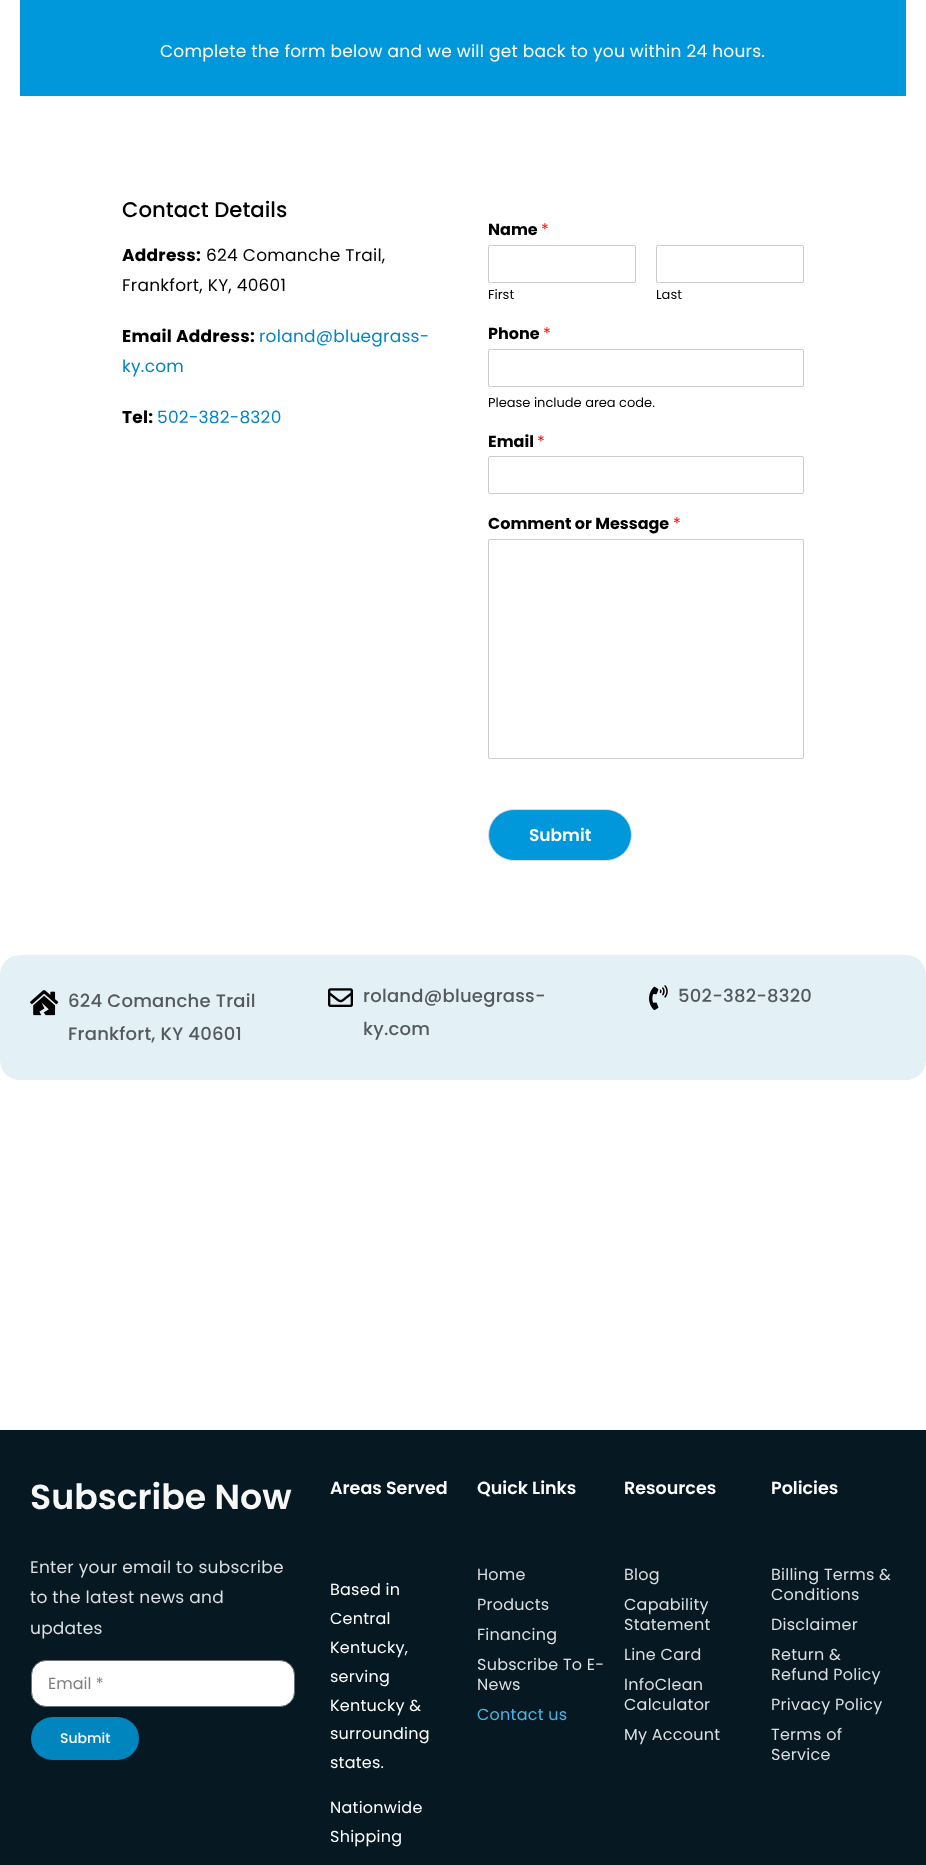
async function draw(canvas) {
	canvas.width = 926;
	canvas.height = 1865;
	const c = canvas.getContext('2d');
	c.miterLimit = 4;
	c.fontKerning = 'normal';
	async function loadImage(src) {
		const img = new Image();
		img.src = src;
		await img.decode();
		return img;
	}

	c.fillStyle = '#fff';
	c.fillRect(0, 0, 926, 1865);
	c.fillStyle = '#0098da';
	c.fillRect(20, 0, 886, 96);
	c.letterSpacing = '0.25px';
	c.font = '17px Poppins';
	c.fillStyle = '#fff';
	c.fillText('Complete the form below and we will get back to you within 24 hours.', 160, 57);
	c.letterSpacing = '0px';
	c.font = '500 21.25px Poppins';
	c.fillStyle = '#000';
	c.fillText('Contact Details', 122, 217);
	c.letterSpacing = '0.25px';
	c.font = 'bold 17px Poppins';
	c.fillText('Address:', 122, 261);
	c.font = '17px Poppins';
	c.fillText('624 Comanche Trail,', 206, 261);
	c.fillText('Frankfort, KY, 40601', 122, 291);
	c.font = 'bold 17px Poppins';
	c.fillText('Email Address:', 122, 342);
	c.font = '17px Poppins';
	c.fillStyle = '#0085bf';
	c.fillText('roland@bluegrass-', 259, 342);
	c.fillText('ky.com', 122, 372);
	c.font = 'bold 17px Poppins';
	c.fillStyle = '#000';
	c.fillText('Tel:', 122, 423);
	c.font = '17px Poppins';
	c.fillStyle = '#0085bf';
	c.fillText('502-382-8320', 157, 423);
	c.letterSpacing = '0px';
	c.font = 'bold 16px Poppins';
	c.fillStyle = '#000';
	c.fillText('Name', 488, 235);
	c.font = '16px Poppins';
	c.fillStyle = '#f00';
	c.fillText('*', 541, 235);
	c.beginPath();
	c.roundRect(488.5, 245.5, 147, 37, 1.5);
	c.strokeStyle = '#ccc';
	c.stroke();
	c.font = '13px Poppins';
	c.fillStyle = '#000';
	c.fillText('First', 488, 299);
	c.beginPath();
	c.roundRect(656.5, 245.5, 147, 37, 1.5);
	c.stroke();
	c.fillText('Last', 656, 299);
	c.font = 'bold 16px Poppins';
	c.fillText('Phone', 488, 339);
	c.font = '16px Poppins';
	c.fillStyle = '#f00';
	c.fillText('*', 543, 339);
	c.beginPath();
	c.roundRect(488.5, 349.5, 315, 37, 1.5);
	c.stroke();
	c.font = '13px Poppins';
	c.fillStyle = '#000';
	c.fillText('Please include area code.', 488, 407);
	c.font = 'bold 16px Poppins';
	c.fillText('Email', 488, 447);
	c.font = '16px Poppins';
	c.fillStyle = '#f00';
	c.fillText('*', 537, 447);
	c.beginPath();
	c.roundRect(488.5, 456.5, 315, 37, 1.5);
	c.stroke();
	c.font = 'bold 16px Poppins';
	c.fillStyle = '#000';
	c.fillText('Comment or Message', 488, 529);
	c.font = '16px Poppins';
	c.fillStyle = '#f00';
	c.fillText('*', 673, 529);
	c.beginPath();
	c.roundRect(488.5, 539.5, 315, 219, 1.5);
	c.stroke();
	c.fillStyle = '#0098da';
	c.beginPath();
	c.roundRect(488.5, 809.5, 143, 51, 25.5);
	c.fill();
	c.strokeStyle = '#ddd';
	c.stroke();
	c.font = '600 17px Poppins';
	c.fillStyle = '#fff';
	c.fillText('Submit', 529, 841);
	c.fillStyle = '#e3f0f5';
	c.beginPath();
	c.roundRect(0, 955, 303, 125, [20, 0, 0, 20]);
	c.fill();
	c.drawImage(await loadImage('img1.png'), 30, 990, 29, 26);
	c.letterSpacing = '0.25px';
	c.font = '500 18px Poppins';
	c.fillStyle = '#54595f';
	c.fillText('624 Comanche Trail', 68, 1007);
	c.fillText('Frankfort, KY 40601', 68, 1040);
	c.fillStyle = '#e3f0f5';
	c.fillRect(303, 955, 321, 125);
	c.drawImage(await loadImage('img2.png'), 328, 988, 25, 19);
	c.fillStyle = '#54595f';
	c.fillText('roland@bluegrass-', 363, 1002);
	c.fillText('ky.com', 363, 1035);
	c.fillStyle = '#e3f0f5';
	c.beginPath();
	c.roundRect(624, 955, 302, 125, [0, 20, 20, 0]);
	c.fill();
	c.drawImage(await loadImage('img3.png'), 649, 985, 19, 26);
	c.fillStyle = '#54595f';
	c.fillText('502-382-8320', 678, 1002);
	c.fillStyle = '#061821';
	c.fillRect(0, 1430, 926, 435);
	c.letterSpacing = '0px';
	c.font = '600 34.75px Poppins';
	c.fillStyle = '#f7f7f7';
	c.fillText('Subscribe Now', 30, 1509);
	c.letterSpacing = '0.25px';
	c.font = '17px Poppins';
	c.fillStyle = '#dddfe1';
	for (const [text, x, y] of [
		['Enter your email to subscribe', 30, 1573],
		['to the latest news and', 30, 1603],
		['updates', 30, 1634],
	]) {
		c.fillText(text, x, y);
	}
	c.fillStyle = '#fff';
	c.beginPath();
	c.roundRect(31.5, 1660.5, 263, 46, 14.5);
	c.fill();
	c.strokeStyle = '#69727d';
	c.stroke();
	c.letterSpacing = '0px';
	c.font = '16px Poppins';
	c.fillStyle = '#808080';
	c.fillText('Email *', 48, 1689);
	c.fillStyle = '#0085bf';
	c.beginPath();
	c.roundRect(31, 1717, 108, 43, 21.5);
	c.fill();
	c.font = '500 14px Poppins';
	c.fillStyle = '#fff';
	c.fillText('Submit', 60, 1743);
	c.font = '600 17.5px Poppins';
	c.fillText('Areas Served', 330, 1494);
	c.letterSpacing = '0.25px';
	c.font = '16px Poppins';
	for (const [text, x, y] of [
		['Based in', 330, 1595],
		['Central', 330, 1624],
		['Kentucky,', 330, 1653],
		['serving', 330, 1682],
		['Kentucky &', 330, 1711],
		['surrounding', 330, 1739],
		['states.', 330, 1768],
		['Nationwide', 330, 1813],
		['Shipping', 330, 1842],
	]) {
		c.fillText(text, x, y);
	}
	c.letterSpacing = '0px';
	c.font = '600 17.5px Poppins';
	c.fillText('Quick Links', 477, 1494);
	c.letterSpacing = '0.25px';
	c.font = '16px Poppins';
	c.fillStyle = '#dddfe1';
	for (const [text, x, y] of [
		['Home', 477, 1580],
		['Products', 477, 1610],
		['Financing', 477, 1640],
		['Subscribe To E-', 477, 1670],
		['News', 477, 1690],
	]) {
		c.fillText(text, x, y);
	}
	c.fillStyle = '#4ab6e5';
	c.fillText('Contact us', 477, 1720);
	c.letterSpacing = '0px';
	c.font = '600 17.5px Poppins';
	c.fillStyle = '#fff';
	c.fillText('Resources', 624, 1494);
	c.letterSpacing = '0.25px';
	c.font = '16px Poppins';
	c.fillStyle = '#dddfe1';
	for (const [text, x, y] of [
		['Blog', 624, 1580],
		['Capability', 624, 1610],
		['Statement', 624, 1630],
		['Line Card', 624, 1660],
		['InfoClean', 624, 1690],
		['Calculator', 624, 1710],
		['My Account', 624, 1740],
	]) {
		c.fillText(text, x, y);
	}
	c.letterSpacing = '0px';
	c.font = '600 17.5px Poppins';
	c.fillStyle = '#fff';
	c.fillText('Policies', 771, 1494);
	c.letterSpacing = '0.25px';
	c.font = '16px Poppins';
	c.fillStyle = '#dddfe1';
	for (const [text, x, y] of [
		['Billing Terms &', 771, 1580],
		['Conditions', 771, 1600],
		['Disclaimer', 771, 1630],
		['Return &', 771, 1660],
		['Refund Policy', 771, 1680],
		['Privacy Policy', 771, 1710],
		['Terms of', 771, 1740],
		['Service', 771, 1760],
	]) {
		c.fillText(text, x, y);
	}
}

draw(document.querySelector('canvas'));
